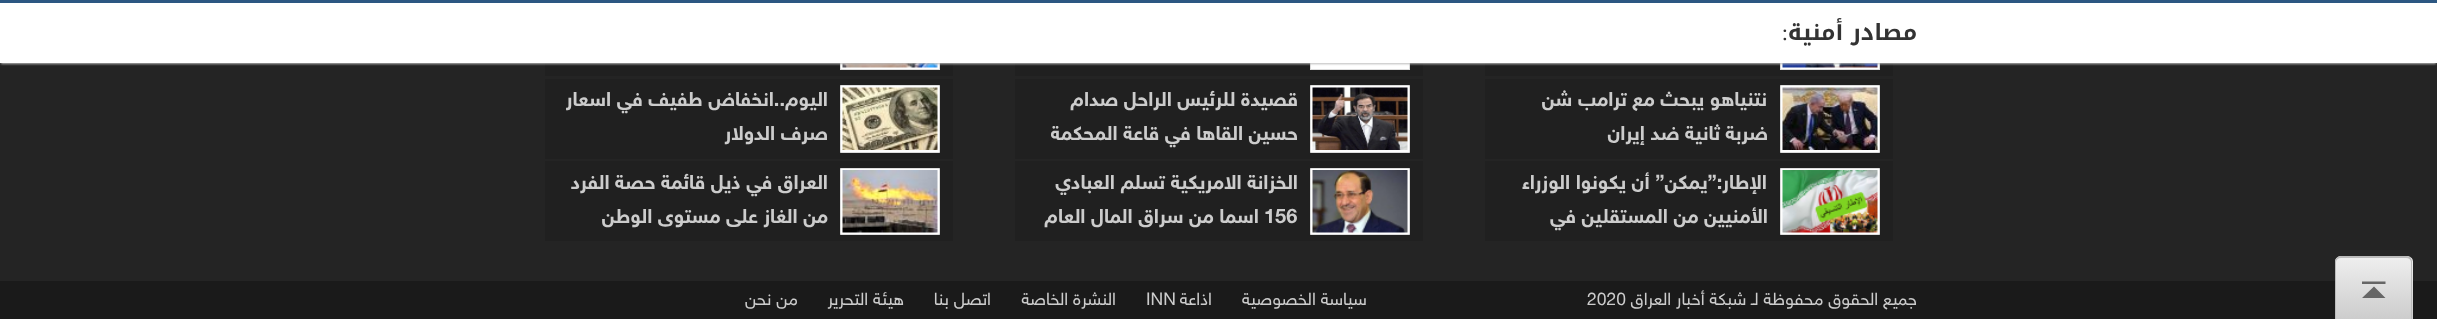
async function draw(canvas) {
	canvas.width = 2437;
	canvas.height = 319;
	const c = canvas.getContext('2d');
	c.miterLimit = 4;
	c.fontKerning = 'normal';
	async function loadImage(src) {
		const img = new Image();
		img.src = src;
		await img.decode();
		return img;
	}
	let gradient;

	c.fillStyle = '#242424';
	c.fillRect(0, 0, 2437, 319);
	c.save();
	c.beginPath();
	c.moveTo(2341, 256);
	c.lineTo(2407, 256);
	c.bezierCurveTo(2410.5, 256, 2413, 258.5, 2413, 262);
	c.lineTo(2413, 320);
	c.lineTo(2335, 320);
	c.lineTo(2335, 262);
	c.bezierCurveTo(2335, 258.5, 2337.5, 256, 2341, 256);
	c.closePath();
	c.clip();
	gradient = c.createLinearGradient(2374, 195, 2374, 258);
	gradient.addColorStop(0, '#eee');
	gradient.addColorStop(1, '#ccc');
	c.fillStyle = gradient;
	c.fillRect(2335, 256, 78, 2);
	c.restore();
	c.fillStyle = '#1a1a1a';
	c.fillRect(0, 281, 2437, 38);
	c.save();
	c.beginPath();
	c.moveTo(2341, 256);
	c.lineTo(2407, 256);
	c.bezierCurveTo(2410.5, 256, 2413, 258.5, 2413, 262);
	c.lineTo(2413, 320);
	c.lineTo(2335, 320);
	c.lineTo(2335, 262);
	c.bezierCurveTo(2335, 258.5, 2337.5, 256, 2341, 256);
	c.closePath();
	c.clip();
	gradient = c.createLinearGradient(2374, 258, 2374, 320);
	gradient.addColorStop(0, '#eee');
	gradient.addColorStop(1, '#ccc');
	c.fillStyle = gradient;
	c.fillRect(2335, 258, 78, 61);
	c.restore();
	c.fillStyle = '#bbb';
	c.beginPath();
	c.moveTo(2341, 256);
	c.lineTo(2406, 256);
	c.bezierCurveTo(2410, 256, 2412, 259, 2412, 262);
	c.lineTo(2412, 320);
	c.lineTo(2335, 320);
	c.lineTo(2335, 262);
	c.bezierCurveTo(2335, 259, 2338, 256, 2341, 256);
	c.closePath();
	c.moveTo(2341, 258);
	c.lineTo(2406, 258);
	c.bezierCurveTo(2409, 258, 2411, 260, 2411, 262);
	c.lineTo(2411, 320);
	c.lineTo(2336, 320);
	c.lineTo(2336, 262);
	c.bezierCurveTo(2336, 260, 2338, 258, 2341, 258);
	c.closePath();
	c.fill('evenodd');
	c.fillStyle = '#666';
	c.beginPath();
	c.moveTo(2362, 298);
	c.lineTo(2374, 286.5);
	c.lineTo(2385.5, 298);
	c.closePath();
	c.moveTo(2362, 281.5);
	c.lineTo(2385.5, 281.5);
	c.lineTo(2385.5, 284);
	c.lineTo(2362, 284);
	c.closePath();
	c.fill();
	c.fillStyle = '#202020';
	c.fillRect(1485, 63, 408, 13);
	c.fillStyle = '#fff';
	c.fillRect(1781, 63, 98, 6);
	c.strokeStyle = '#ddd';
	c.strokeRect(1780.5, 3.5, 99, 66);
	c.drawImage(await loadImage('img1.png'), 1782, 63, 96, 5);
	c.fillStyle = '#202020';
	c.fillRect(1015, 63, 408, 13);
	c.fillStyle = '#fff';
	c.fillRect(1311, 63, 98, 6);
	c.strokeRect(1310.5, 3.5, 99, 66);
	c.fillStyle = '#202020';
	c.fillRect(545, 63, 408, 13);
	c.fillStyle = '#fff';
	c.fillRect(841, 63, 98, 6);
	c.strokeRect(840.5, 3.5, 99, 66);
	c.drawImage(await loadImage('img6.png'), 842, 63, 96, 5);
	c.fillStyle = '#bbb';
	c.filter = 'blur(1px)';
	c.beginPath();
	c.rect(1, 4, 2435, 60);
	c.fill();
	c.filter = 'none';
	c.fillStyle = '#fff';
	c.fillRect(0, 3, 2437, 60);
	c.fillStyle = '#2c5782';
	c.fillRect(0, 0, 2437, 3);
	c.direction = 'rtl';
	c.font = 'bold 22.5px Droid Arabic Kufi';
	c.fillStyle = '#333';
	c.fillText('مصادر أمنية', 1917, 40);
	c.font = '22.5px Liberation Serif';
	c.fillText(':', 1788, 40);
	c.fillStyle = '#202020';
	c.fillRect(1485, 79, 408, 80);
	c.fillStyle = '#fff';
	c.beginPath();
	c.rect(1780.5, 85.5, 99, 67);
	c.fill();
	c.stroke();
	c.drawImage(await loadImage('img2.png'), 1782, 87, 96, 63);
	c.font = 'bold 20px "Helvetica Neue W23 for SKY"';
	c.fillStyle = '#ccc';
	c.fillText('نتنياهو يبحث مع ترامب شن', 1767, 106);
	c.fillText('ضربة ثانية ضد إيران', 1768, 140);
	c.fillStyle = '#202020';
	c.fillRect(1485, 161, 408, 80);
	c.fillStyle = '#fff';
	c.beginPath();
	c.rect(1780.5, 168.5, 99, 66);
	c.fill();
	c.stroke();
	c.drawImage(await loadImage('img3.png'), 1782, 170, 96, 63);
	c.fillStyle = '#ccc';
	c.fillText('الإطار:”يمكن” أن يكونوا الوزراء', 1767, 189);
	c.fillText('الأمنيين من المستقلين في', 1768, 223);
	c.fillStyle = '#202020';
	c.fillRect(1015, 79, 408, 80);
	c.fillStyle = '#fff';
	c.beginPath();
	c.rect(1310.5, 85.5, 99, 67);
	c.fill();
	c.stroke();
	c.drawImage(await loadImage('img4.png'), 1312, 87, 96, 63);
	c.fillStyle = '#ccc';
	c.fillText('قصيدة للرئيس الراحل صدام', 1298, 106);
	c.fillText('حسين القاها في قاعة المحكمة', 1298, 140);
	c.fillStyle = '#202020';
	c.fillRect(1015, 161, 408, 80);
	c.fillStyle = '#fff';
	c.beginPath();
	c.rect(1310.5, 168.5, 99, 66);
	c.fill();
	c.stroke();
	c.drawImage(await loadImage('img5.png'), 1312, 170, 96, 63);
	c.fillStyle = '#ccc';
	c.fillText('الخزانة الامريكية تسلم العبادي', 1298, 189);
	c.direction = 'ltr';
	c.fillText('156', 1264, 223);
	c.direction = 'rtl';
	c.fillText('اسما من سراق المال العام', 1259, 223);
	c.fillStyle = '#202020';
	c.fillRect(545, 79, 408, 80);
	c.fillStyle = '#fff';
	c.beginPath();
	c.rect(840.5, 85.5, 99, 67);
	c.fill();
	c.stroke();
	c.drawImage(await loadImage('img7.png'), 842, 87, 96, 63);
	c.fillStyle = '#ccc';
	c.fillText('اليوم..انخفاض طفيف في اسعار', 828, 106);
	c.fillText('صرف الدولار', 828, 140);
	c.fillStyle = '#202020';
	c.fillRect(545, 161, 408, 80);
	c.fillStyle = '#fff';
	c.beginPath();
	c.rect(840.5, 168.5, 99, 66);
	c.fill();
	c.stroke();
	c.drawImage(await loadImage('img8.png'), 842, 170, 96, 63);
	c.fillStyle = '#ccc';
	c.fillText('العراق في ذيل قائمة حصة الفرد', 828, 189);
	c.fillText('من الغاز على مستوى الوطن', 828, 223);
	c.font = '17.5px "Helvetica Neue W23 for SKY"';
	c.fillText('جميع الحقوق محفوظة لـ شبكة أخبار العراق', 1917, 305);
	c.direction = 'ltr';
	c.fillText('2020', 1587, 305);
	c.direction = 'rtl';
	c.fillText('سياسة الخصوصية', 1367, 305);
	c.fillText('اذاعة', 1212, 305);
	c.direction = 'ltr';
	c.fillText('INN', 1146, 305);
	c.direction = 'rtl';
	for (const [text, x, y] of [
		['النشرة الخاصة', 1116, 305],
		['اتصل بنا', 991, 305],
		['هيئة التحرير', 904, 305],
		['من نحن', 798, 305],
	]) {
		c.fillText(text, x, y);
	}
}

draw(document.querySelector('canvas'));
